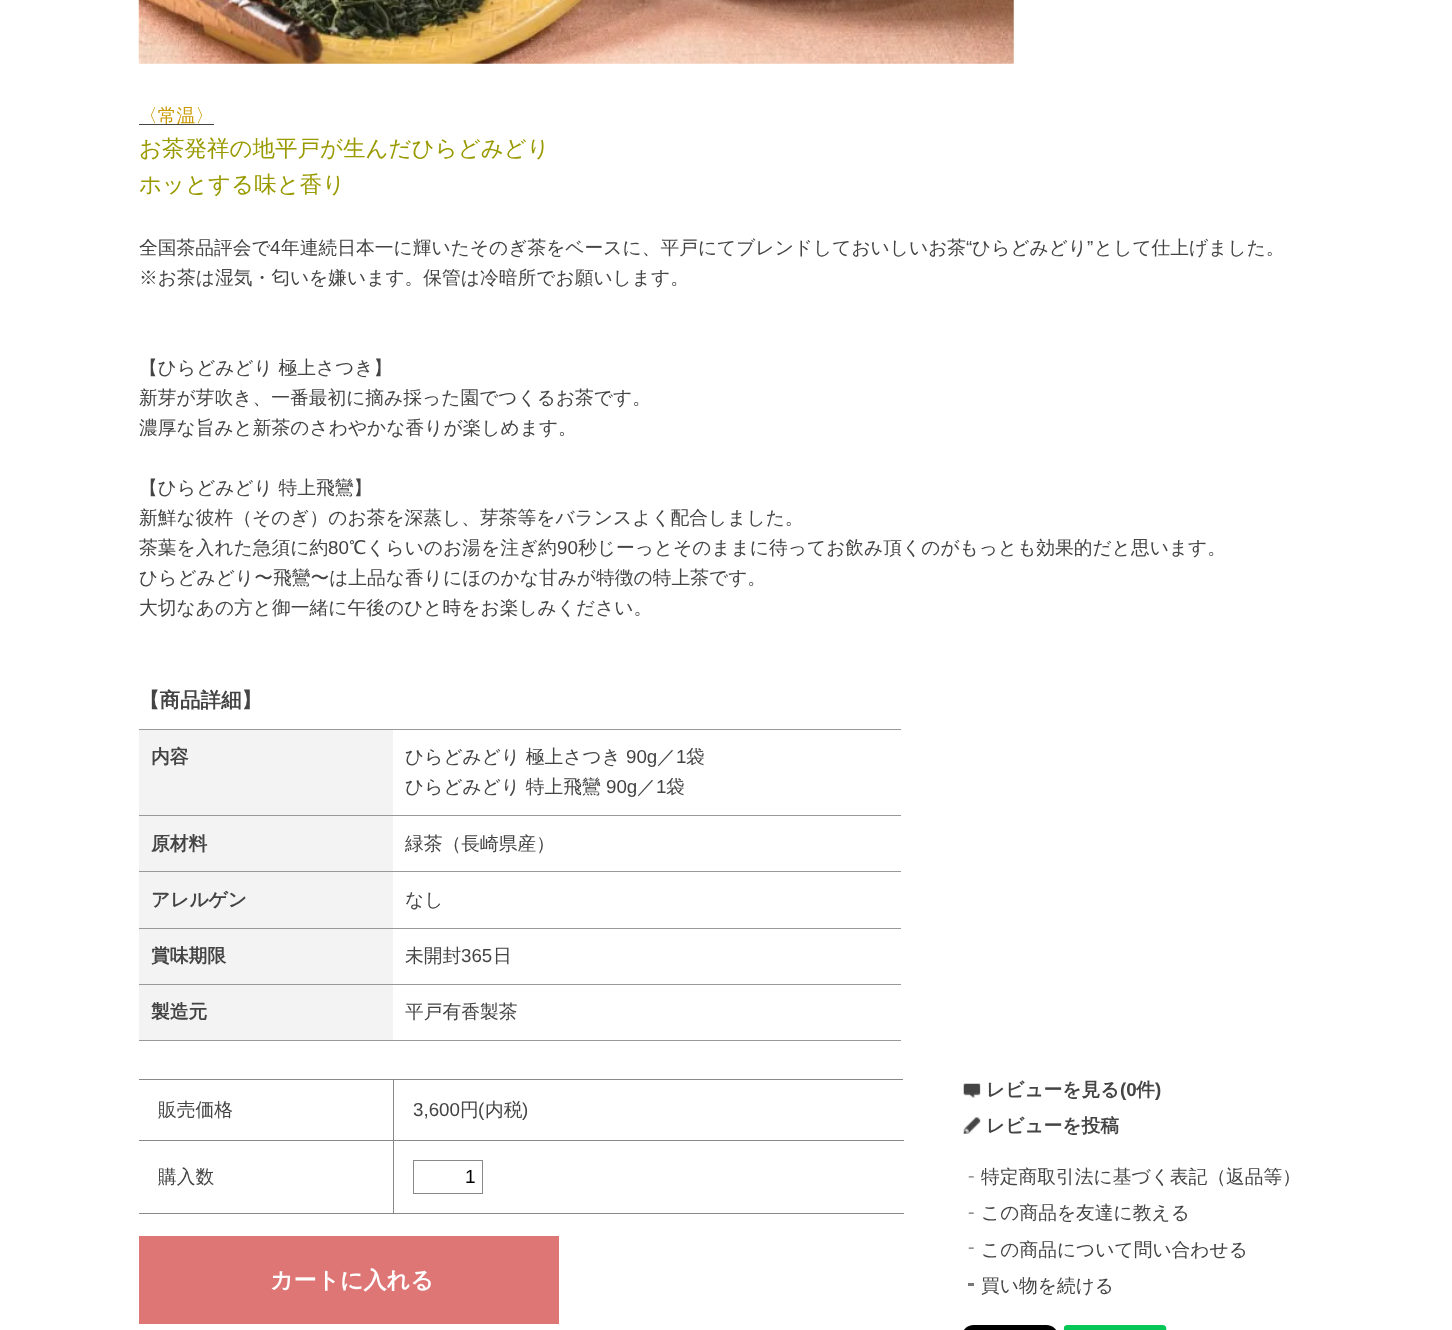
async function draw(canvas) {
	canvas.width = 1452;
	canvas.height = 1330;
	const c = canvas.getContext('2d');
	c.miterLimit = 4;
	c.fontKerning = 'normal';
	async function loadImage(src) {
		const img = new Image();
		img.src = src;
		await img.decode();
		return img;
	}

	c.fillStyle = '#fff';
	c.fillRect(0, 0, 1452, 1330);
	c.drawImage(await loadImage('img1.png'), 138, 0, 876, 64);
	c.fillStyle = '#444';
	c.fillRect(139, 124, 75, 1);
	c.font = '500 18.75px WenQuanYi Zen Hei';
	c.fillStyle = '#c90';
	c.fillText('〈常温〉', 139, 122);
	c.font = '500 22.5px WenQuanYi Zen Hei';
	c.fillStyle = '#990';
	c.fillText('お茶発祥の地平戸が生んだひらどみどり', 139, 156);
	c.fillText('ホッとする味と香り', 139, 192);
	c.font = '500 18.75px WenQuanYi Zen Hei';
	c.fillStyle = '#444';
	c.fillText('全国茶品評会で', 139, 254);
	c.font = '18.75px Liberation Sans';
	c.fillText('4', 270, 254);
	c.font = '500 18.75px WenQuanYi Zen Hei';
	c.fillText('年連続日本一に輝いたそのぎ茶をベースに、平戸にてブレンドしておいしいお茶', 281, 254);
	c.font = '18.75px Liberation Sans';
	c.fillText('“', 966, 254);
	c.font = '500 18.75px WenQuanYi Zen Hei';
	c.fillText('ひらどみどり', 972, 254);
	c.font = '18.75px Liberation Sans';
	c.fillText('”', 1087, 254);
	c.font = '500 18.75px WenQuanYi Zen Hei';
	for (const [text, x, y] of [
		['として仕上げました。', 1094, 254],
		['※お茶は湿気・匂いを嫌います。保管は冷暗所でお願いします。', 139, 284],
		['【ひらどみどり 極上さつき】', 139, 374],
		['新芽が芽吹き、一番最初に摘み採った園でつくるお茶です。', 139, 404],
		['濃厚な旨みと新茶のさわやかな香りが楽しめます。', 139, 434],
		['【ひらどみどり 特上飛鸞】', 139, 494],
		['新鮮な彼杵（そのぎ）のお茶を深蒸し、芽茶等をバランスよく配合しました。', 139, 524],
		['茶葉を入れた急須に約', 139, 554],
	]) {
		c.fillText(text, x, y);
	}
	c.font = '18.75px Liberation Sans';
	c.fillText('80', 328, 554);
	c.font = '500 18.75px WenQuanYi Zen Hei';
	c.fillText('℃くらいのお湯を注ぎ約', 349, 554);
	c.font = '18.75px Liberation Sans';
	c.fillText('90', 557, 554);
	c.font = '500 18.75px WenQuanYi Zen Hei';
	for (const [text, x, y] of [
		['秒じーっとそのままに待ってお飲み頂くのがもっとも効果的だと思います。', 578, 554],
		['ひらどみどり〜飛鸞〜は上品な香りにほのかな甘みが特徴の特上茶です。', 139, 584],
		['大切なあの方と御一緒に午後のひと時をお楽しみください。', 139, 614],
	]) {
		c.fillText(text, x, y);
	}
	c.font = 'bold 20.5px WenQuanYi Zen Hei';
	c.fillText('【商品詳細】', 139, 707);
	for (const [x, y, w, h, color] of [
		[139, 730, 254, 85, '#f3f3f3'],
		[139, 729, 762, 1, '#999'],
		[139, 815, 762, 1, '#999'],
	]) {
		c.fillStyle = color;
		c.fillRect(x, y, w, h);
	}
	c.font = 'bold 18.75px WenQuanYi Zen Hei';
	c.fillStyle = '#444';
	c.fillText('内容', 151, 763);
	c.font = '500 18.75px WenQuanYi Zen Hei';
	c.fillText('ひらどみどり 極上さつき', 405, 763);
	c.font = '18.75px Liberation Sans';
	c.fillText('90g', 626, 763);
	c.font = '500 18.75px WenQuanYi Zen Hei';
	c.fillText('／', 657, 763);
	c.font = '18.75px Liberation Sans';
	c.fillText('1', 676, 763);
	c.font = '500 18.75px WenQuanYi Zen Hei';
	c.fillText('袋', 686, 763);
	c.fillText('ひらどみどり 特上飛鸞', 405, 793);
	c.font = '18.75px Liberation Sans';
	c.fillText('90g', 606, 793);
	c.font = '500 18.75px WenQuanYi Zen Hei';
	c.fillText('／', 637, 793);
	c.font = '18.75px Liberation Sans';
	c.fillText('1', 656, 793);
	c.font = '500 18.75px WenQuanYi Zen Hei';
	c.fillText('袋', 666, 793);
	c.fillStyle = '#f3f3f3';
	c.fillRect(139, 816, 254, 112);
	c.fillStyle = '#999';
	c.fillRect(139, 871, 762, 1);
	c.font = 'bold 18.75px WenQuanYi Zen Hei';
	c.fillStyle = '#444';
	c.fillText('原材料', 151, 850);
	c.font = '500 18.75px WenQuanYi Zen Hei';
	c.fillText('緑茶（長崎県産）', 405, 850);
	c.fillStyle = '#999';
	c.fillRect(139, 928, 762, 1);
	c.font = 'bold 18.75px WenQuanYi Zen Hei';
	c.fillStyle = '#444';
	c.fillText('アレルゲン', 151, 906);
	c.font = '500 18.75px WenQuanYi Zen Hei';
	c.fillText('なし', 405, 906);
	c.fillStyle = '#f3f3f3';
	c.fillRect(139, 929, 254, 55);
	c.fillStyle = '#999';
	c.fillRect(139, 984, 762, 1);
	c.font = 'bold 18.75px WenQuanYi Zen Hei';
	c.fillStyle = '#444';
	c.fillText('賞味期限', 151, 962);
	c.font = '500 18.75px WenQuanYi Zen Hei';
	c.fillText('未開封', 405, 962);
	c.font = '18.75px Liberation Sans';
	c.fillText('365', 461, 962);
	c.font = '500 18.75px WenQuanYi Zen Hei';
	c.fillText('日', 493, 962);
	c.fillStyle = '#f3f3f3';
	c.fillRect(139, 985, 254, 55);
	c.fillStyle = '#999';
	c.fillRect(139, 1040, 762, 1);
	c.font = 'bold 18.75px WenQuanYi Zen Hei';
	c.fillStyle = '#444';
	c.fillText('製造元', 151, 1018);
	c.font = '500 18.75px WenQuanYi Zen Hei';
	c.fillText('平戸有香製茶', 405, 1018);
	for (const [x, y, w, h, color] of [
		[139, 1079, 764, 1, '#888'],
		[393, 1213, 511, 1, '#888'],
		[393, 1140, 1, 74, '#888'],
		[393, 1140, 511, 1, '#888'],
		[393, 1079, 1, 62, '#888'],
		[139, 1140, 255, 1, '#888'],
	]) {
		c.fillStyle = color;
		c.fillRect(x, y, w, h);
	}
	c.fillStyle = '#444';
	c.fillText('販売価格', 158, 1116);
	c.font = '18.75px Liberation Sans';
	c.fillText('3,600', 413, 1116);
	c.font = '500 18.75px WenQuanYi Zen Hei';
	c.fillText('円', 460, 1116);
	c.font = '18.75px Liberation Sans';
	c.fillText('(', 478, 1116);
	c.font = '500 18.75px WenQuanYi Zen Hei';
	c.fillText('内税', 485, 1116);
	c.font = '18.75px Liberation Sans';
	c.fillText(')', 522, 1116);
	c.fillStyle = '#888';
	c.fillRect(139, 1213, 255, 1);
	c.font = '500 18.75px WenQuanYi Zen Hei';
	c.fillStyle = '#444';
	c.fillText('購入数', 158, 1183);
	c.strokeStyle = '#888';
	c.strokeRect(413.5, 1160.5, 69, 33);
	c.font = '19px Liberation Sans';
	c.fillStyle = '#000';
	c.fillText('1', 465, 1183);
	c.fillStyle = '#df7676';
	c.fillRect(139, 1236, 420, 88);
	c.font = 'bold 23px WenQuanYi Zen Hei';
	c.fillStyle = '#fff';
	c.fillText('カートに入れる', 270, 1288);
	c.drawImage(await loadImage('img2.png'), 963, 1083, 18, 15);
	c.font = 'bold 18.75px WenQuanYi Zen Hei';
	c.fillStyle = '#444';
	c.fillText('レビューを見る', 986, 1096);
	c.font = 'bold 18.75px Liberation Sans';
	c.fillText('(0', 1120, 1096);
	c.font = 'bold 18.75px WenQuanYi Zen Hei';
	c.fillText('件', 1136, 1096);
	c.font = 'bold 18.75px Liberation Sans';
	c.fillText(')', 1155, 1096);
	c.drawImage(await loadImage('img3.png'), 963, 1117, 18, 17);
	c.font = 'bold 18.75px WenQuanYi Zen Hei';
	c.fillText('レビューを投稿', 986, 1132);
	c.drawImage(await loadImage('img4.png'), 968, 1176, 6, 2);
	c.font = '500 18.75px WenQuanYi Zen Hei';
	c.fillText('特定商取引法に基づく表記（返品等）', 981, 1183);
	c.drawImage(await loadImage('img5.png'), 968, 1212, 6, 2);
	c.fillText('この商品を友達に教える', 981, 1219);
	c.drawImage(await loadImage('img5.png'), 968, 1247, 6, 2);
	c.fillText('この商品について問い合わせる', 981, 1256);
	c.fillStyle = '#777';
	c.fillRect(968, 1283, 6, 3);
	c.fillStyle = '#444';
	c.fillText('買い物を続ける', 981, 1292);
	c.drawImage(await loadImage('img6.png'), 964, 1325, 92, 5);
	c.drawImage(await loadImage('img7.png'), 1063, 1325, 104, 5);
}

draw(document.querySelector('canvas'));
